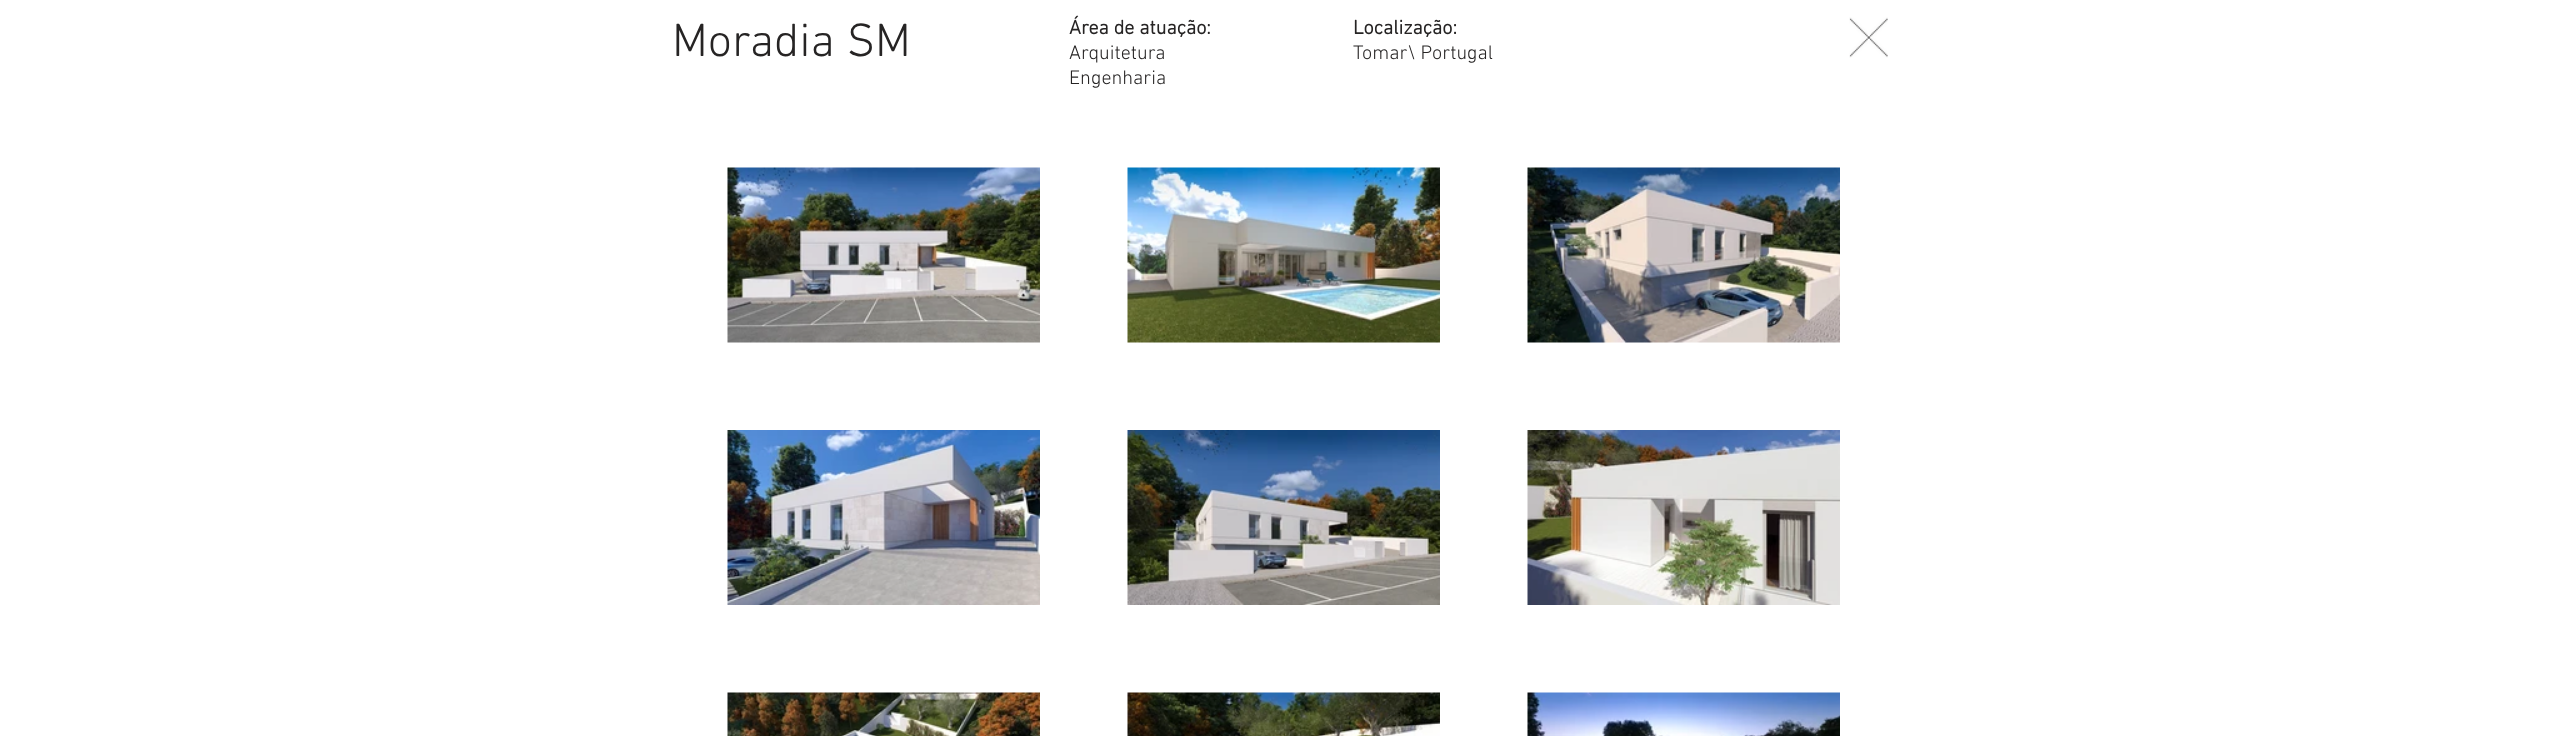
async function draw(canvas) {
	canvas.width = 2566;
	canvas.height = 736;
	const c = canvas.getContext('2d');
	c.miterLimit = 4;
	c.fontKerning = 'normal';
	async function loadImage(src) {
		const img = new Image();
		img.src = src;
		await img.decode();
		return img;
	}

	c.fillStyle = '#fff';
	c.fillRect(0, 0, 2566, 736);
	c.font = '300 47.5px "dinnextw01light"';
	c.fillStyle = '#262424';
	c.fillText('Moradia SM', 672, 56);
	c.font = 'bold 20px "dinnextw01light"';
	c.fillText('Área de atuação:', 1069, 34);
	c.font = '300 20px "dinnextw01light"';
	c.fillText('Arquitetura', 1069, 59);
	c.fillText('Engenharia', 1069, 84);
	c.font = 'bold 20px "dinnextw01light"';
	c.fillText('Localização:', 1353, 34);
	c.font = '300 20px "dinnextw01light"';
	c.fillText('Tomar\\ Portugal', 1353, 59);
	c.drawImage(await loadImage('img1.png'), 1849, 17, 39, 41);
	c.drawImage(await loadImage('img2.png'), 727, 167, 313, 176);
	c.drawImage(await loadImage('img3.png'), 1127, 167, 313, 176);
	c.drawImage(await loadImage('img4.png'), 1527, 167, 313, 176);
	c.drawImage(await loadImage('img5.png'), 727, 430, 313, 175);
	c.drawImage(await loadImage('img6.png'), 1127, 430, 313, 175);
	c.drawImage(await loadImage('img7.png'), 1527, 430, 313, 175);
	c.drawImage(await loadImage('img8.png'), 727, 692, 313, 44);
	c.drawImage(await loadImage('img9.png'), 1127, 692, 313, 44);
	c.drawImage(await loadImage('img10.png'), 1527, 692, 313, 44);
}

draw(document.querySelector('canvas'));
